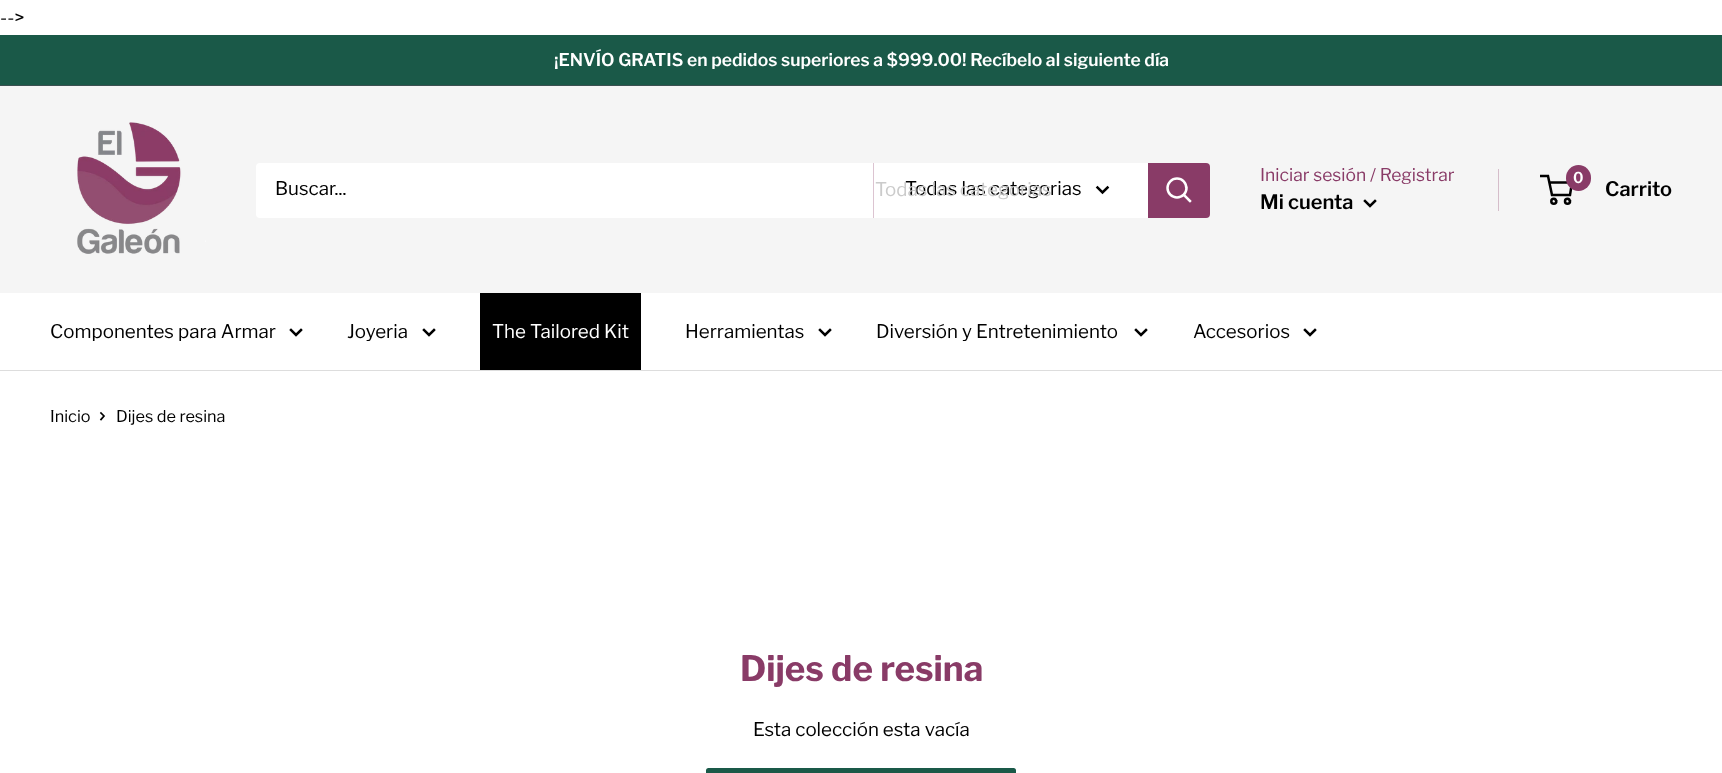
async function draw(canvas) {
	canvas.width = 1722;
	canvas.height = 773;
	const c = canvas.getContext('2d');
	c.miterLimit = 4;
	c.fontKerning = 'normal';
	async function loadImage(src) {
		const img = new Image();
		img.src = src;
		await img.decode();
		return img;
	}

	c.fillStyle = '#fff';
	c.fillRect(0, 0, 1722, 773);
	c.font = '18.75px Libre Franklin';
	c.fillStyle = '#000';
	c.fillText('-->', 0, 24);
	c.fillStyle = '#1a5948';
	c.fillRect(0, 35, 1722, 50);
	c.fillStyle = '#3b5051';
	c.fillRect(0, 85, 1722, 1);
	c.font = '600 17.5px Libre Franklin';
	c.fillStyle = '#fff';
	c.fillText('¡ENVÍO GRATIS en pedidos superiores a $999.00! Recíbelo al siguiente día', 554, 66);
	c.fillStyle = '#f5f5f5';
	c.fillRect(0, 86, 1722, 207);
	c.drawImage(await loadImage('img1.png'), 77, 122, 129, 132);
	c.fillStyle = '#fff';
	c.beginPath();
	c.roundRect(256, 163, 954, 55, 4);
	c.fill();
	c.font = '18.75px Libre Franklin';
	c.fillStyle = '#000';
	c.fillText('Buscar...', 275, 195);
	c.fillStyle = '#dcc4d1';
	c.fillRect(873, 163, 1, 55);
	c.fillStyle = '#000';
	c.fillText('Todas las categorias', 905, 195);
	c.beginPath();
	c.moveTo(1107.5, 187.5);
	c.lineTo(1102.5, 192.5);
	c.lineTo(1097.5, 187.5);
	c.strokeStyle = '#000';
	c.lineWidth = 2.5;
	c.lineCap = 'square';
	c.stroke();
	c.fillStyle = '#cbcbcb';
	c.fillText('Todas las categorias', 875, 196);
	c.fillStyle = '#893b67';
	c.beginPath();
	c.roundRect(1148, 163, 62, 55, [0, 4, 4, 0]);
	c.fill();
	c.beginPath();
	c.moveTo(1190, 201);
	c.lineTo(1184, 195);
	c.strokeStyle = '#fff';
	c.stroke();
	c.beginPath();
	c.arc(1177, 188, 9.5, 0, 2 * Math.PI);
	c.stroke();
	c.font = '17.5px Libre Franklin';
	c.fillText('Iniciar sesión / Registrar', 1260, 181);
	c.fillStyle = '#d5bdca';
	c.fillRect(1498, 169, 1, 42);
	c.font = '600 20px Libre Franklin';
	c.fillStyle = '#000';
	c.fillText('Mi cuenta', 1260, 209);
	c.beginPath();
	c.moveTo(1375, 201);
	c.lineTo(1370, 206);
	c.lineTo(1365, 201);
	c.strokeStyle = '#000';
	c.stroke();
	c.beginPath();
	c.arc(1553.8, 201.2, 2.5, 0, 2 * Math.PI);
	c.stroke();
	c.beginPath();
	c.arc(1567.5, 201.2, 2.5, 0, 2 * Math.PI);
	c.stroke();
	c.beginPath();
	c.moveTo(1549, 182.5);
	c.lineTo(1572, 182.5);
	c.lineTo(1570, 195);
	c.lineTo(1552, 195);
	c.lineTo(1548, 176);
	c.lineTo(1540, 176);
	c.lineCap = 'butt';
	c.stroke();
	c.fillStyle = '#893b67';
	c.beginPath();
	c.roundRect(1566, 165, 25, 26, 12.5);
	c.fill();
	c.font = '600 15px Libre Franklin';
	c.fillStyle = '#fff';
	c.fillText('0', 1573, 183);
	c.font = '600 20px Libre Franklin';
	c.fillStyle = '#000';
	c.fillText('Carrito', 1605, 196);
	c.fillStyle = '#ddd';
	c.fillRect(0, 370, 1722, 1);
	c.font = '18.75px Libre Franklin';
	c.fillStyle = '#000';
	c.fillText('Componentes para Armar', 50, 338);
	c.beginPath();
	c.moveTo(301, 330);
	c.lineTo(296, 335);
	c.lineTo(291, 330);
	c.lineCap = 'square';
	c.stroke();
	c.fillText('Joyeria', 347, 338);
	c.beginPath();
	c.moveTo(434, 330);
	c.lineTo(429, 335);
	c.lineTo(424, 330);
	c.stroke();
	c.fillRect(480, 293, 161, 77);
	c.fillStyle = '#fff';
	c.fillText('The Tailored Kit', 492, 338);
	c.fillStyle = '#000';
	c.fillText('Herramientas', 685, 338);
	c.beginPath();
	c.moveTo(830, 330);
	c.lineTo(825, 335);
	c.lineTo(820, 330);
	c.stroke();
	c.fillText('Diversión y Entretenimiento', 876, 338);
	c.beginPath();
	c.moveTo(1146, 330);
	c.lineTo(1141, 335);
	c.lineTo(1136, 330);
	c.stroke();
	c.fillText('Accesorios', 1193, 338);
	c.beginPath();
	c.moveTo(1315, 330);
	c.lineTo(1310, 335);
	c.lineTo(1305, 330);
	c.stroke();
	c.font = '16.25px Libre Franklin';
	c.fillText('Inicio', 50, 422);
	c.beginPath();
	c.moveTo(101, 413);
	c.lineTo(104, 416);
	c.lineTo(101, 419.5);
	c.lineWidth = 1.7;
	c.stroke();
	c.fillText('Dijes de resina', 116, 422);
	c.font = 'bold 35px Libre Franklin';
	c.fillStyle = '#893b67';
	c.fillText('Dijes de resina', 740, 681);
	c.font = '18.75px Libre Franklin';
	c.fillStyle = '#000';
	c.fillText('Esta colección esta vacía', 753, 736);
	c.fillStyle = '#1a5948';
	c.beginPath();
	c.roundRect(706, 768, 310, 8, 2.5);
	c.fill();
}

draw(document.querySelector('canvas'));
